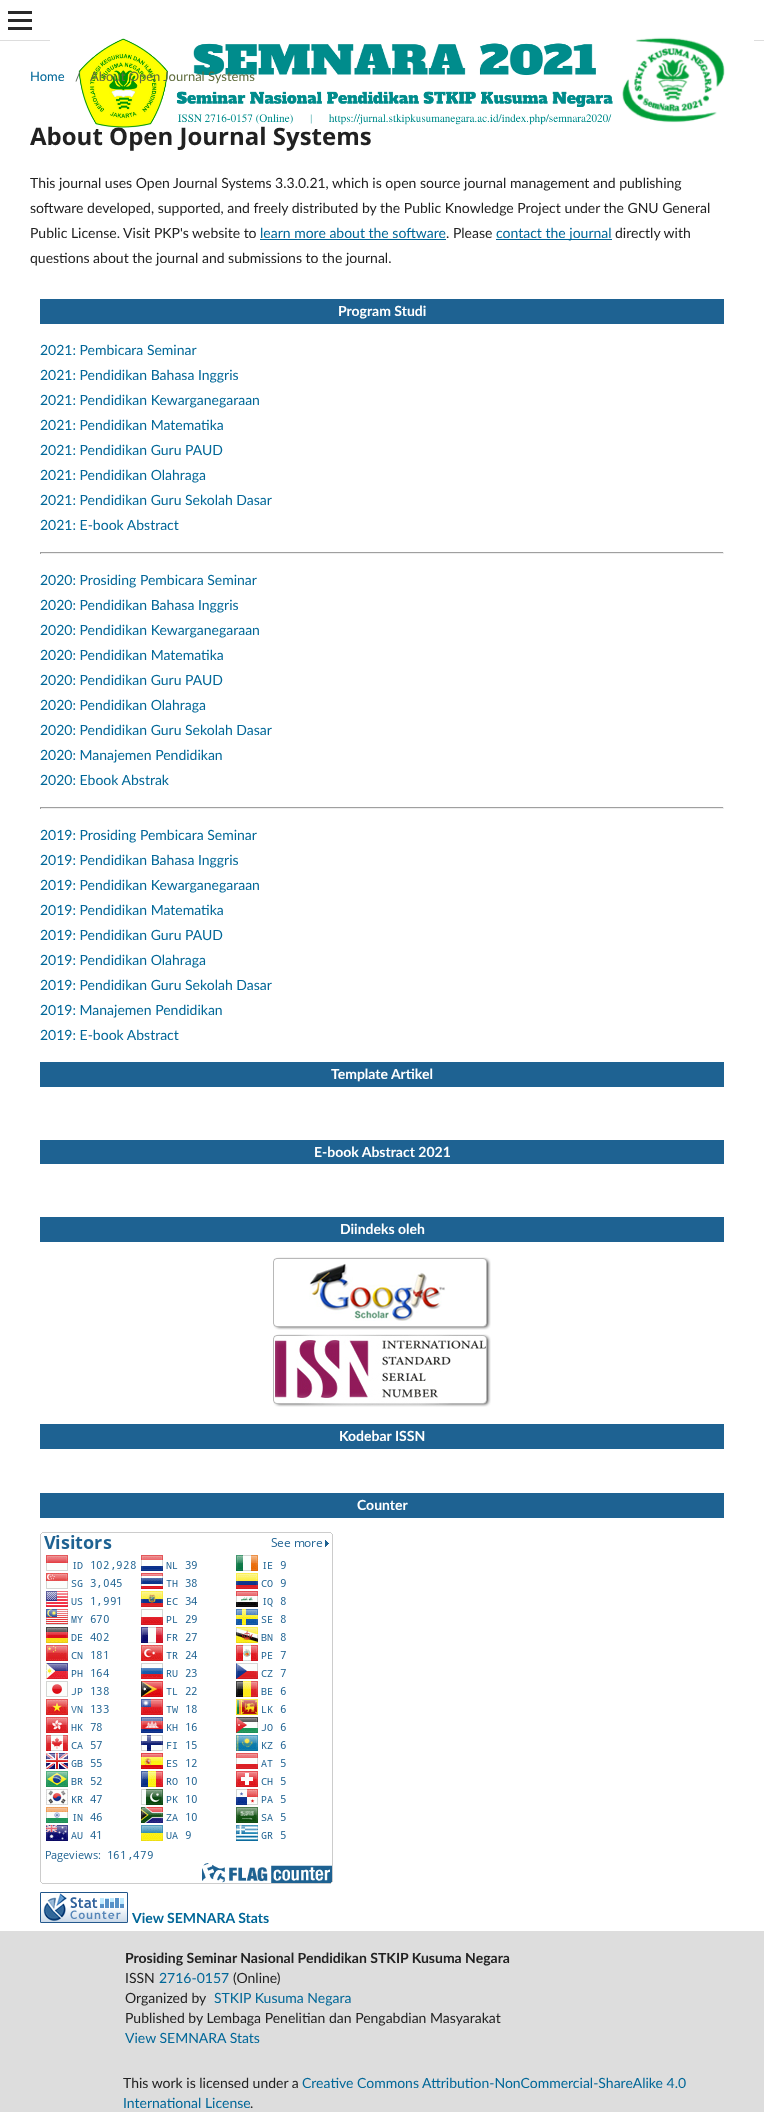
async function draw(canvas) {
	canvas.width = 764;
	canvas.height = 2112;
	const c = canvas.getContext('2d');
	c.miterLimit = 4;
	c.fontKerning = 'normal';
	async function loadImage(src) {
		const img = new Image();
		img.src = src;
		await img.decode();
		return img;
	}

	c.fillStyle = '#fff';
	c.fillRect(0, 0, 764, 2112);
	for (const [x, y, w, h, color] of [
		[0, 40, 764, 1, '#ddd'],
		[8, 27, 24, 3, '#292929'],
		[8, 11, 24, 3, '#292929'],
		[8, 19, 24, 3, '#292929'],
	]) {
		c.fillStyle = color;
		c.fillRect(x, y, w, h);
	}
	c.drawImage(await loadImage('img1.png'), 50, 37, 704, 91);
	c.font = '13px Lato';
	c.fillStyle = '#006798';
	c.fillText('Home', 30, 81);
	c.fillStyle = '#656f65';
	c.fillText('/', 75, 81);
	c.fillStyle = '#5f6c3d';
	c.fillText('About Open Journal Systems', 90, 81);
	c.font = 'bold 24px Noto Sans';
	c.fillStyle = '#212121';
	c.fillText('About Open Journal Systems', 30, 145);
	c.font = '14px Lato';
	for (const [text, x, y] of [
		['This journal uses Open Journal Systems 3.3.0.21, which is open source journal management and publishing', 30, 188],
		['software developed, supported, and freely distributed by the Public Knowledge Project under the GNU General', 30, 213],
		['Public License. Visit PKP\'s website to', 30, 238],
	]) {
		c.fillText(text, x, y);
	}
	c.fillStyle = '#006798';
	c.fillText('learn more about the software', 260, 238);
	c.fillRect(260, 239, 186, 1);
	c.fillStyle = '#212121';
	c.fillText('. Please', 446, 238);
	c.fillStyle = '#006798';
	c.fillRect(496, 239, 116, 1);
	c.fillText('contact the journal', 496, 238);
	c.fillStyle = '#212121';
	c.fillText('directly with', 615, 238);
	c.fillText('questions about the journal and submissions to the journal.', 30, 263);
	c.fillStyle = '#1e6292';
	c.fillRect(40, 299, 684, 25);
	c.font = 'bold 14px Lato';
	c.fillStyle = '#fff';
	c.fillText('Program Studi', 338, 316);
	c.font = '14px Lato';
	c.fillStyle = '#006798';
	for (const [text, x, y] of [
		['2021: Pembicara Seminar', 40, 355],
		['2021: Pendidikan Bahasa Inggris', 40, 380],
		['2021: Pendidikan Kewarganegaraan', 40, 405],
		['2021: Pendidikan Matematika', 40, 430],
		['2021: Pendidikan Guru PAUD', 40, 455],
		['2021: Pendidikan Olahraga', 40, 480],
		['2021: Pendidikan Guru Sekolah Dasar', 40, 505],
		['2021: E-book Abstract', 40, 530],
	]) {
		c.fillText(text, x, y);
	}
	for (const [x, y, w, h, color] of [
		[40, 552, 684, 1, '#9f9f9f'],
		[723, 552, 1, 2, '#eee'],
		[40, 553, 684, 1, '#eee'],
		[40, 552, 1, 2, '#9f9f9f'],
	]) {
		c.fillStyle = color;
		c.fillRect(x, y, w, h);
	}
	c.fillStyle = '#006798';
	for (const [text, x, y] of [
		['2020: Prosiding Pembicara Seminar', 40, 585],
		['2020: Pendidikan Bahasa Inggris', 40, 610],
		['2020: Pendidikan Kewarganegaraan', 40, 635],
		['2020: Pendidikan Matematika', 40, 660],
		['2020: Pendidikan Guru PAUD', 40, 685],
		['2020: Pendidikan Olahraga', 40, 710],
		['2020: Pendidikan Guru Sekolah Dasar', 40, 735],
		['2020: Manajemen Pendidikan', 40, 760],
		['2020: Ebook Abstrak', 40, 785],
	]) {
		c.fillText(text, x, y);
	}
	for (const [x, y, w, h, color] of [
		[40, 807, 684, 1, '#9f9f9f'],
		[723, 807, 1, 2, '#eee'],
		[40, 808, 684, 1, '#eee'],
		[40, 807, 1, 2, '#9f9f9f'],
	]) {
		c.fillStyle = color;
		c.fillRect(x, y, w, h);
	}
	c.fillStyle = '#006798';
	for (const [text, x, y] of [
		['2019: Prosiding Pembicara Seminar', 40, 840],
		['2019: Pendidikan Bahasa Inggris', 40, 865],
		['2019: Pendidikan Kewarganegaraan', 40, 890],
		['2019: Pendidikan Matematika', 40, 915],
		['2019: Pendidikan Guru PAUD', 40, 940],
		['2019: Pendidikan Olahraga', 40, 965],
		['2019: Pendidikan Guru Sekolah Dasar', 40, 990],
		['2019: Manajemen Pendidikan', 40, 1015],
		['2019: E-book Abstract', 40, 1040],
	]) {
		c.fillText(text, x, y);
	}
	c.fillStyle = '#1e6292';
	c.fillRect(40, 1062, 684, 25);
	c.font = 'bold 14px Lato';
	c.fillStyle = '#fff';
	c.fillText('Template Artikel', 331, 1079);
	c.fillStyle = '#1e6292';
	c.fillRect(40, 1140, 684, 24);
	c.fillStyle = '#fff';
	c.fillText('E-book Abstract 2021', 314, 1157);
	c.fillStyle = '#1e6292';
	c.fillRect(40, 1217, 684, 25);
	c.fillStyle = '#fff';
	c.fillText('Diindeks oleh', 340, 1234);
	c.drawImage(await loadImage('img2.png'), 273, 1257, 218, 73);
	c.drawImage(await loadImage('img3.png'), 273, 1334, 218, 73);
	c.fillStyle = '#1e6292';
	c.fillRect(40, 1424, 684, 25);
	c.fillStyle = '#fff';
	c.fillText('Kodebar ISSN', 339, 1441);
	c.fillStyle = '#1e6292';
	c.fillRect(40, 1493, 684, 25);
	c.fillStyle = '#fff';
	c.fillText('Counter', 357, 1510);
	c.drawImage(await loadImage('img4.png'), 40, 1532, 293, 352);
	c.drawImage(await loadImage('img5.png'), 40, 1892, 88, 31);
	c.fillStyle = '#006798';
	c.fillText('View SEMNARA Stats', 132, 1923);
	c.fillStyle = '#ddd';
	c.fillRect(0, 1931, 764, 181);
	c.fillStyle = '#212121';
	c.fillText('Prosiding Seminar Nasional Pendidikan STKIP Kusuma Negara', 125, 1963);
	c.font = '14px Lato';
	c.fillText('ISSN', 125, 1983);
	c.fillStyle = '#006798';
	c.fillText('2716-0157', 159, 1983);
	c.fillStyle = '#212121';
	c.fillText('(Online)', 233, 1983);
	c.fillText('Organized by', 125, 2003);
	c.fillStyle = '#006798';
	c.fillText('STKIP Kusuma Negara', 214, 2003);
	c.fillStyle = '#212121';
	c.fillText('Published by Lembaga Penelitian dan Pengabdian Masyarakat', 125, 2023);
	c.fillStyle = '#006798';
	c.fillText('View SEMNARA Stats', 125, 2043);
	c.fillStyle = '#212121';
	c.fillText('This work is licensed under a', 123, 2088);
	c.fillStyle = '#006798';
	c.fillText('Creative Commons Attribution-NonCommercial-ShareAlike 4.0', 302, 2088);
	c.fillText('International License', 123, 2108);
	c.fillStyle = '#212121';
	c.fillText('.', 250, 2108);
}

draw(document.querySelector('canvas'));
